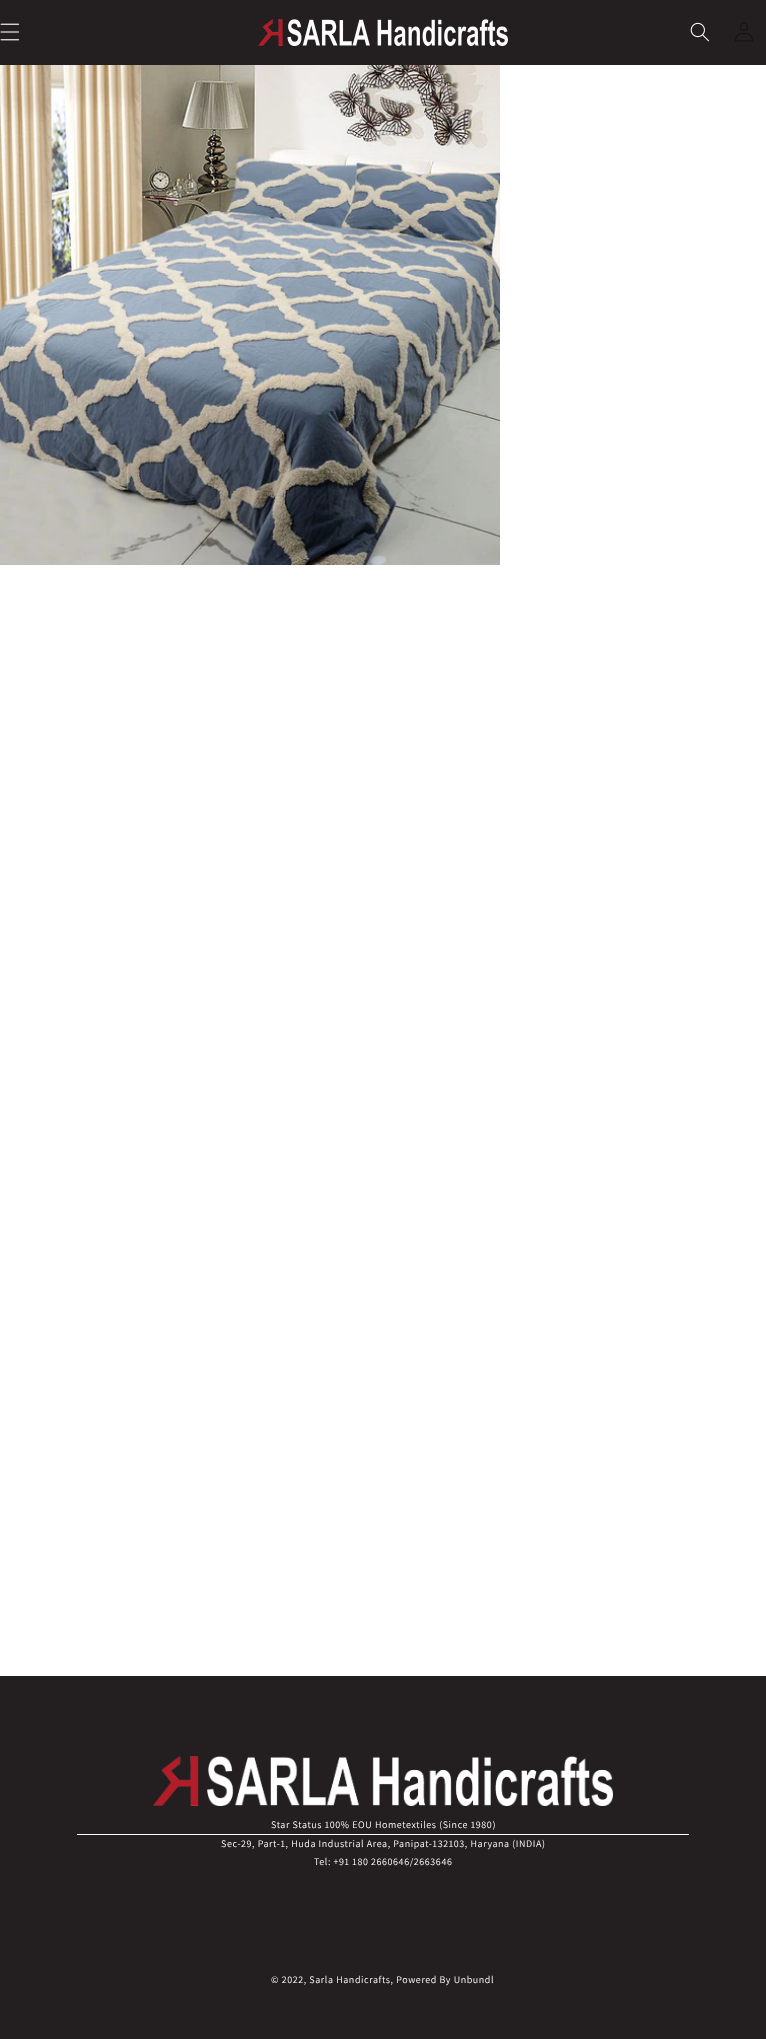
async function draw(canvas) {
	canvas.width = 766;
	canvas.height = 2039;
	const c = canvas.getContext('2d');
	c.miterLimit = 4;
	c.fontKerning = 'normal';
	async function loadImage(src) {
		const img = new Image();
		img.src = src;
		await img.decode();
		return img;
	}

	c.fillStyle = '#fff';
	c.fillRect(0, 0, 766, 2039);
	c.fillStyle = '#231f20';
	c.fillRect(0, 0, 766, 65);
	c.drawImage(await loadImage('img1.png'), 0, 23, 20, 18);
	c.drawImage(await loadImage('img2.png'), 258, 19, 250, 27);
	c.drawImage(await loadImage('img3.png'), 690, 22, 19, 20);
	c.drawImage(await loadImage('img4.png'), 735, 22, 18, 20);
	c.drawImage(await loadImage('img5.png'), 0, 65, 500, 500);
	c.fillRect(0, 1676, 766, 363);
	c.drawImage(await loadImage('img6.png'), 153, 1756, 460, 50);
	c.fillStyle = '#fff';
	c.fillRect(77, 1834, 612, 1);
	c.letterSpacing = '0.6px';
	c.font = '10px Assistant';
	for (const [text, x, y] of [
		['Star Status 100% EOU Hometextiles (Since 1980)', 271, 1828],
		['Sec-29, Part-1, Huda Industrial Area, Panipat-132103, Haryana (INDIA)', 221, 1847],
		['Tel: +91 180 2660646/2663646', 314, 1865],
		['© 2022, Sarla Handicrafts, Powered By Unbundl', 271, 1983],
	]) {
		c.fillText(text, x, y);
	}
}

draw(document.querySelector('canvas'));
